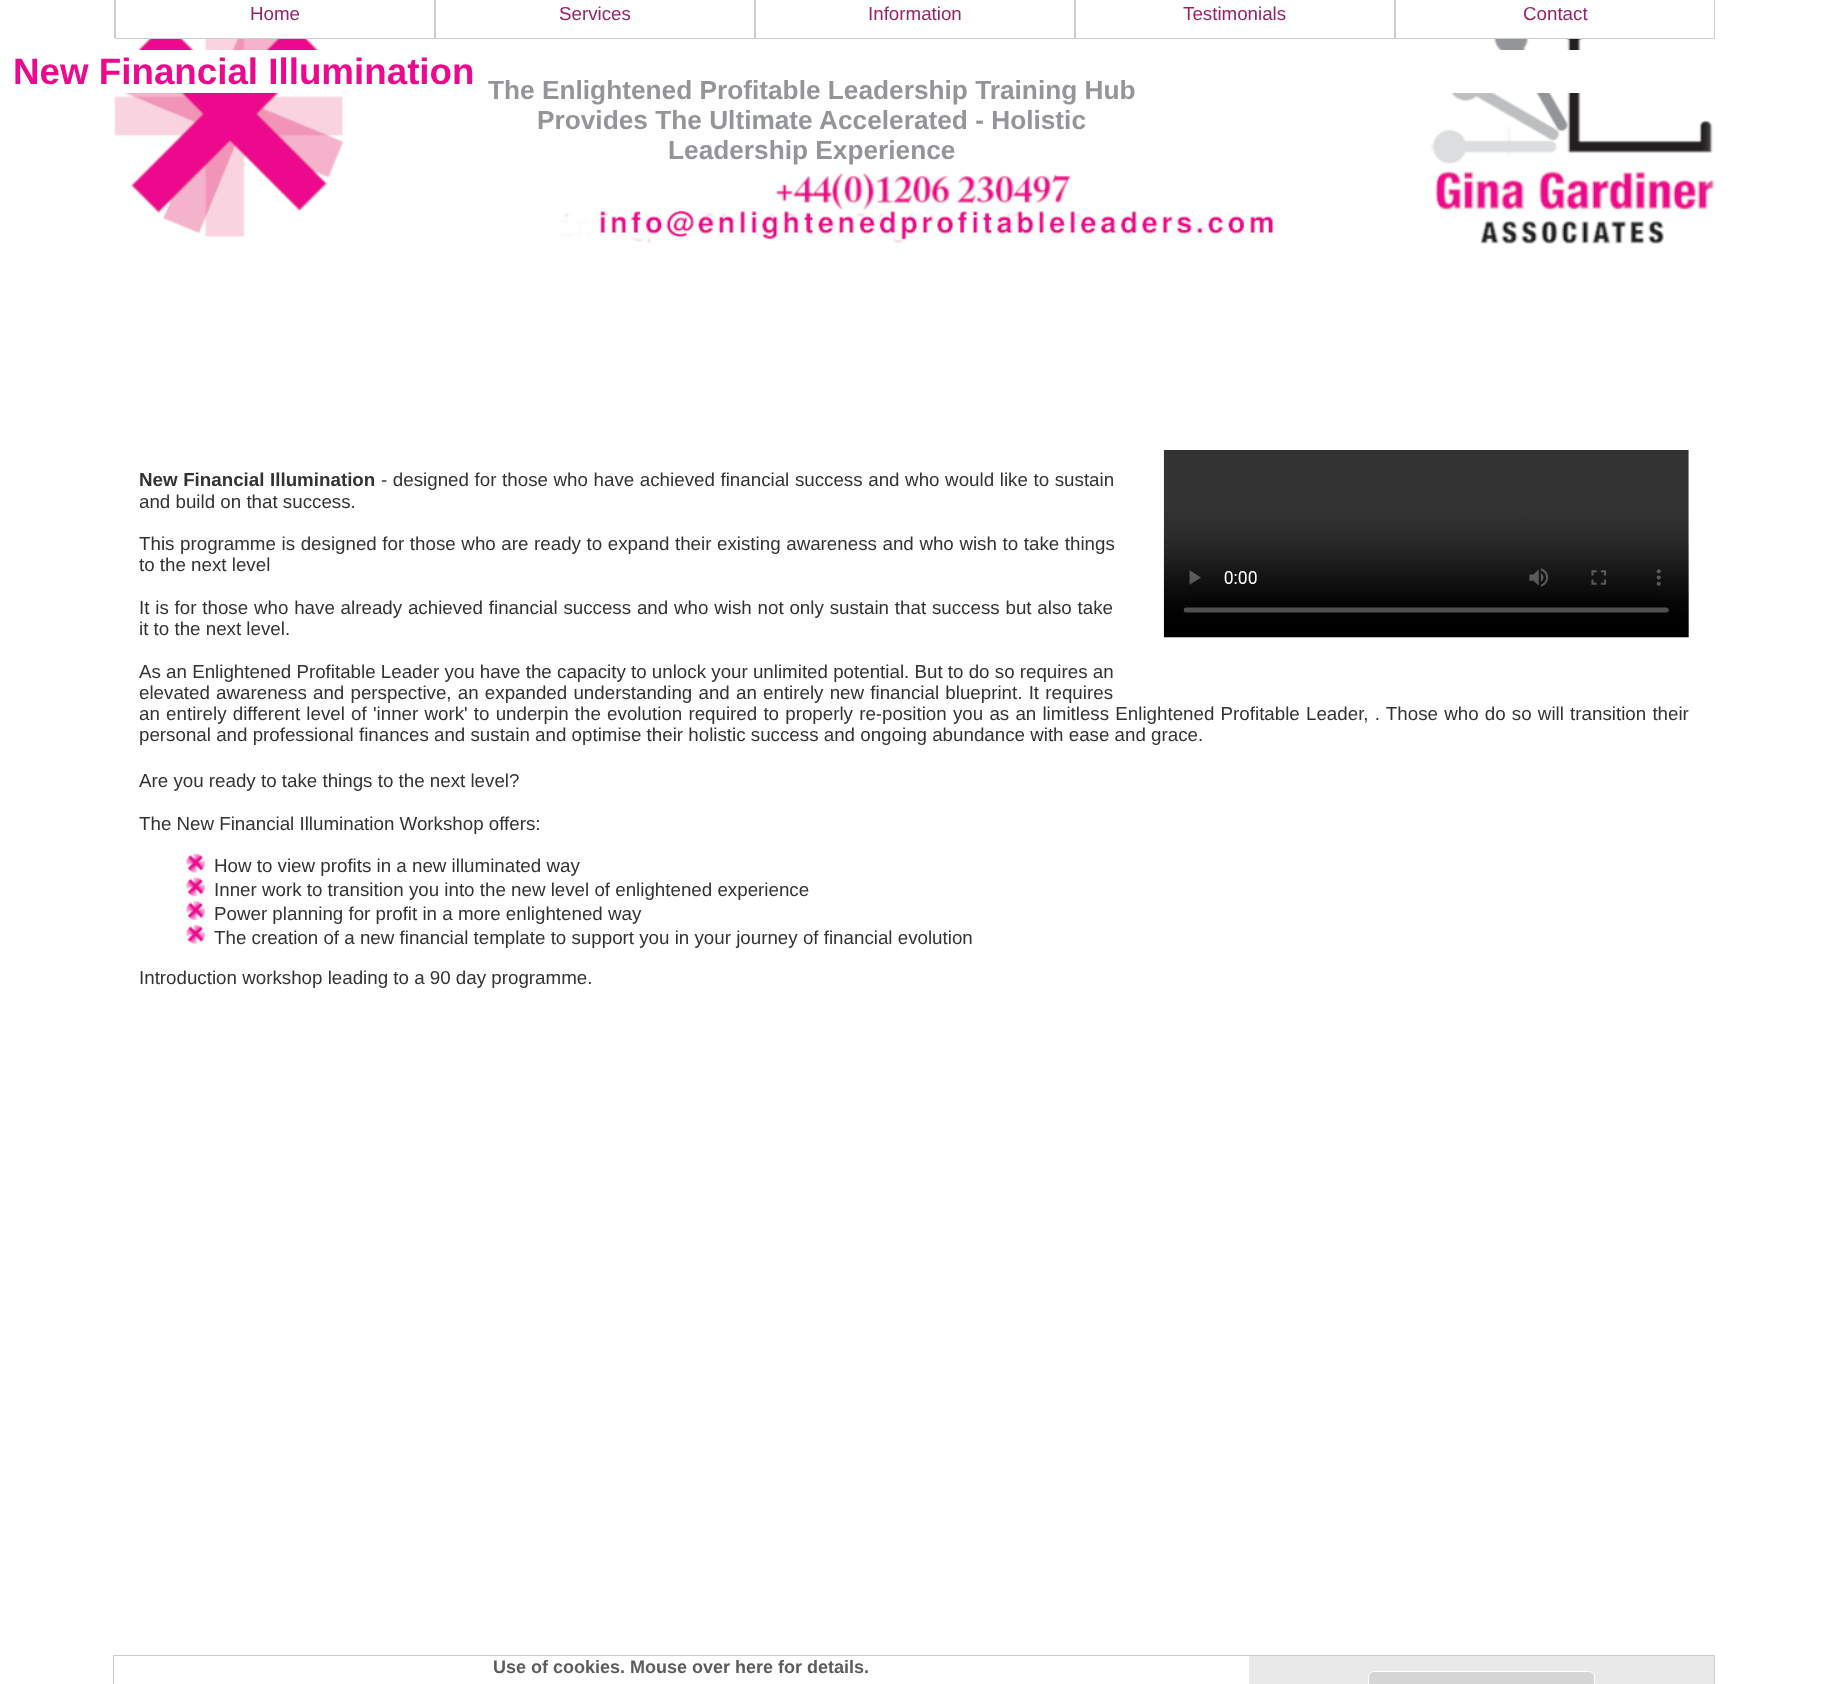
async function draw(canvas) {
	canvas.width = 1827;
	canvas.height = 1684;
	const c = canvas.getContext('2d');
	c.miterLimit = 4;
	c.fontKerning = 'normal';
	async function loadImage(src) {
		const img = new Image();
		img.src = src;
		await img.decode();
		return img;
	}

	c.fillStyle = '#fff';
	c.fillRect(0, 0, 1827, 1684);
	c.strokeStyle = '#ccc';
	c.strokeRect(114.5, -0.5, 319, 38);
	c.drawImage(await loadImage('img1.png'), 114, 38, 1600, 206);
	c.beginPath();
	c.rect(115.5, -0.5, 319, 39);
	c.fill();
	c.stroke();
	c.font = '18.75px Liberation Sans';
	c.fillStyle = '#982367';
	c.fillText('Home', 250, 20);
	c.strokeRect(434.5, -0.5, 319, 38);
	c.fillStyle = '#fff';
	c.beginPath();
	c.rect(435.5, -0.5, 319, 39);
	c.fill();
	c.stroke();
	c.fillStyle = '#982367';
	c.fillText('Services', 559, 20);
	c.strokeRect(754.5, -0.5, 319, 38);
	c.fillStyle = '#fff';
	c.beginPath();
	c.rect(755.5, -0.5, 319, 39);
	c.fill();
	c.stroke();
	c.fillStyle = '#982367';
	c.fillText('Information', 868, 20);
	c.strokeRect(1074.5, -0.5, 319, 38);
	c.fillStyle = '#fff';
	c.beginPath();
	c.rect(1075.5, -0.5, 319, 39);
	c.fill();
	c.stroke();
	c.fillStyle = '#982367';
	c.fillText('Testimonials', 1183, 20);
	c.strokeRect(1394.5, -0.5, 319, 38);
	c.fillStyle = '#fff';
	c.beginPath();
	c.rect(1395.5, -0.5, 319, 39);
	c.fill();
	c.stroke();
	c.fillStyle = '#982367';
	c.fillText('Contact', 1523, 20);
	c.fillStyle = '#fff';
	c.fillRect(117, 50, 1465, 43);
	c.font = 'bold 36.75px Liberation Sans';
	c.fillStyle = '#ec098d';
	c.fillText('New Financial Illumination', 13, 84);
	c.font = 'bold 26.25px Liberation Sans';
	c.fillStyle = '#939598';
	for (const [text, x, y] of [
		['The Enlightened Profitable Leadership Training Hub', 488, 99],
		['Provides The Ultimate Accelerated - Holistic', 537, 129],
		['Leadership Experience', 668, 159],
	]) {
		c.fillText(text, x, y);
	}
	c.drawImage(await loadImage('img2.png'), 1163, 450, 526, 188);
	c.wordSpacing = '0.4px';
	c.font = 'bold 18.75px Liberation Sans';
	c.fillStyle = '#333';
	c.fillText('New Financial Illumination', 139, 486);
	c.font = '18.75px Liberation Sans';
	c.fillText('- designed for those who have achieved financial success and who would like to sustain', 381, 486);
	c.wordSpacing = '0px';
	c.fillText('and build on that success.', 139, 508);
	c.wordSpacing = '0.4px';
	c.fillText('This programme is designed for those who are ready to expand their existing awareness and who wish to take things', 139, 550);
	c.wordSpacing = '0px';
	c.fillText('to the next level', 139, 571);
	c.wordSpacing = '0.6px';
	c.fillText('It is for those who have already achieved financial success and who wish not only sustain that success but also take', 139, 614);
	c.wordSpacing = '0px';
	c.fillText('it to the next level.', 139, 635);
	c.fillText('As an Enlightened Profitable Leader you have the capacity to unlock your unlimited potential. But to do so requires an', 139, 678);
	c.wordSpacing = '1px';
	c.fillText('elevated awareness and perspective, an expanded understanding and an entirely new financial blueprint. It requires', 139, 699);
	c.fillText('an entirely different level of \'inner work\' to underpin the evolution required to properly re-position you as an limitless Enlightened Profitable Leader, . Those who do so will transition their', 139, 720);
	c.wordSpacing = '0px';
	for (const [text, x, y] of [
		['personal and professional finances and sustain and optimise their holistic success and ongoing abundance with ease and grace.', 139, 741],
		['Are you ready to take things to the next level?', 139, 787],
		['The New Financial Illumination Workshop offers:', 139, 830],
	]) {
		c.fillText(text, x, y);
	}
	c.drawImage(await loadImage('img3.png'), 186, 853, 19, 20);
	c.fillText('How to view profits in a new illuminated way', 214, 872);
	c.drawImage(await loadImage('img4.png'), 186, 877, 19, 20);
	c.fillText('Inner work to transition you into the new level of enlightened experience', 214, 896);
	c.drawImage(await loadImage('img5.png'), 186, 901, 19, 19);
	c.fillText('Power planning for profit in a more enlightened way', 214, 920);
	c.drawImage(await loadImage('img6.png'), 186, 925, 19, 19);
	c.fillText('The creation of a new financial template to support you in your journey of financial evolution', 214, 944);
	c.fillText('Introduction workshop leading to a 90 day programme.', 139, 984);
	c.strokeRect(113.5, 1655.5, 1601, 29);
	c.font = 'bold 18px Liberation Sans';
	c.fillStyle = '#5c5c5c';
	c.fillText('Use of cookies. Mouse over here for details.', 493, 1673);
	c.fillStyle = '#e9e9e9';
	c.fillRect(1249, 1656, 465, 28);
	c.fillStyle = '#d6d6d6';
	c.beginPath();
	c.roundRect(1368.5, 1671.5, 226, 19, 5.5);
	c.fill();
	c.strokeStyle = '#fff';
	c.stroke();
}

draw(document.querySelector('canvas'));
